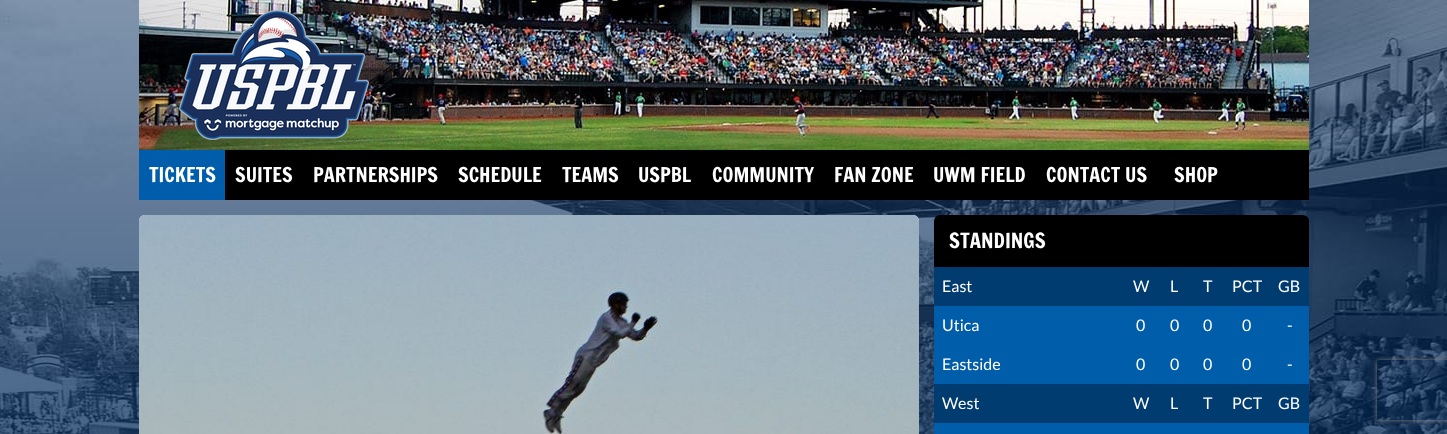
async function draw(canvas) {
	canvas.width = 1447;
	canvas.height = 434;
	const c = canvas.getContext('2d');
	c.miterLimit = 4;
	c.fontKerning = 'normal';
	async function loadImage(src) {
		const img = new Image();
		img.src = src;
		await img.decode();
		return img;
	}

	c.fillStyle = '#fff';
	c.fillRect(0, 0, 1447, 434);
	c.drawImage(await loadImage('img1.png'), 0, 0, 1447, 434);
	c.fillStyle = '#000';
	c.fillRect(225, 150, 1084, 50);
	c.drawImage(await loadImage('img2.png'), 139, 0, 1170, 150);
	c.drawImage(await loadImage('img3.png'), 179, 10, 190, 130);
	c.fillStyle = '#005dab';
	c.fillRect(139, 150, 86, 50);
	c.font = '20px Francois One';
	c.fillStyle = '#fff';
	for (const [text, x, y] of [
		['TICKETS', 149, 182],
		['SUITES', 235, 182],
		['PARTNERSHIPS', 313, 182],
		['SCHEDULE', 458, 182],
		['TEAMS', 562, 182],
		['USPBL', 638, 182],
		['COMMUNITY', 712, 182],
		['FAN ZONE', 834, 182],
		['UWM FIELD', 933, 182],
		['CONTACT US', 1046, 182],
		['SHOP', 1174, 182],
	]) {
		c.fillText(text, x, y);
	}
	c.drawImage(await loadImage('img4.png'), 139, 215, 780, 6);
	c.drawImage(await loadImage('img5.png'), 139, 215, 780, 219);
	c.fillStyle = '#000';
	c.beginPath();
	c.roundRect(934, 215, 375, 52, [6, 6, 0, 0]);
	c.fill();
	c.font = '20.5px Francois One';
	c.fillStyle = '#fff';
	c.fillText('STANDINGS', 949, 248);
	c.fillStyle = '#003c6f';
	c.fillRect(934, 267, 375, 39);
	c.font = '16px Lato';
	c.fillStyle = '#fff';
	for (const [text, x, y] of [
		['East', 942, 292],
		['W', 1133, 292],
		['L', 1170, 292],
		['T', 1203, 292],
		['PCT', 1232, 292],
		['GB', 1278, 292],
	]) {
		c.fillText(text, x, y);
	}
	c.fillStyle = '#005daa';
	c.fillRect(934, 306, 375, 39);
	c.fillStyle = '#fff';
	for (const [text, x, y] of [
		['Utica', 942, 331],
		['0', 1136, 331],
		['0', 1170, 331],
		['0', 1203, 331],
		['0', 1242, 331],
		['-', 1287, 331],
	]) {
		c.fillText(text, x, y);
	}
	c.fillStyle = '#005daa';
	c.fillRect(934, 345, 375, 39);
	c.fillStyle = '#fff';
	for (const [text, x, y] of [
		['Eastside', 942, 370],
		['0', 1136, 370],
		['0', 1170, 370],
		['0', 1203, 370],
		['0', 1242, 370],
		['-', 1287, 370],
	]) {
		c.fillText(text, x, y);
	}
	c.fillStyle = '#003c6f';
	c.fillRect(934, 384, 375, 39);
	c.fillStyle = '#fff';
	for (const [text, x, y] of [
		['West', 942, 409],
		['W', 1133, 409],
		['L', 1170, 409],
		['T', 1203, 409],
		['PCT', 1232, 409],
		['GB', 1278, 409],
	]) {
		c.fillText(text, x, y);
	}
	c.fillStyle = '#005daa';
	c.fillRect(934, 423, 375, 11);
	c.save();
	c.beginPath();
	c.moveTo(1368, 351);
	c.lineTo(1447, 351);
	c.lineTo(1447, 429);
	c.lineTo(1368, 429);
	c.closePath();
	c.moveTo(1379, 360);
	c.lineTo(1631, 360);
	c.bezierCurveTo(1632, 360, 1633, 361, 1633, 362);
	c.lineTo(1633, 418);
	c.bezierCurveTo(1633, 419, 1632, 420, 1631, 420);
	c.lineTo(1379, 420);
	c.bezierCurveTo(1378, 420, 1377, 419, 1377, 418);
	c.lineTo(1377, 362);
	c.bezierCurveTo(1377, 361, 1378, 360, 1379, 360);
	c.closePath();
	c.clip('evenodd');
	c.fillStyle = '#808080';
	c.filter = 'blur(2.5px)';
	c.beginPath();
	c.roundRect(1377, 360, 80, 60, 2);
	c.fill();
	c.filter = 'none';
	c.restore();
}

draw(document.querySelector('canvas'));
